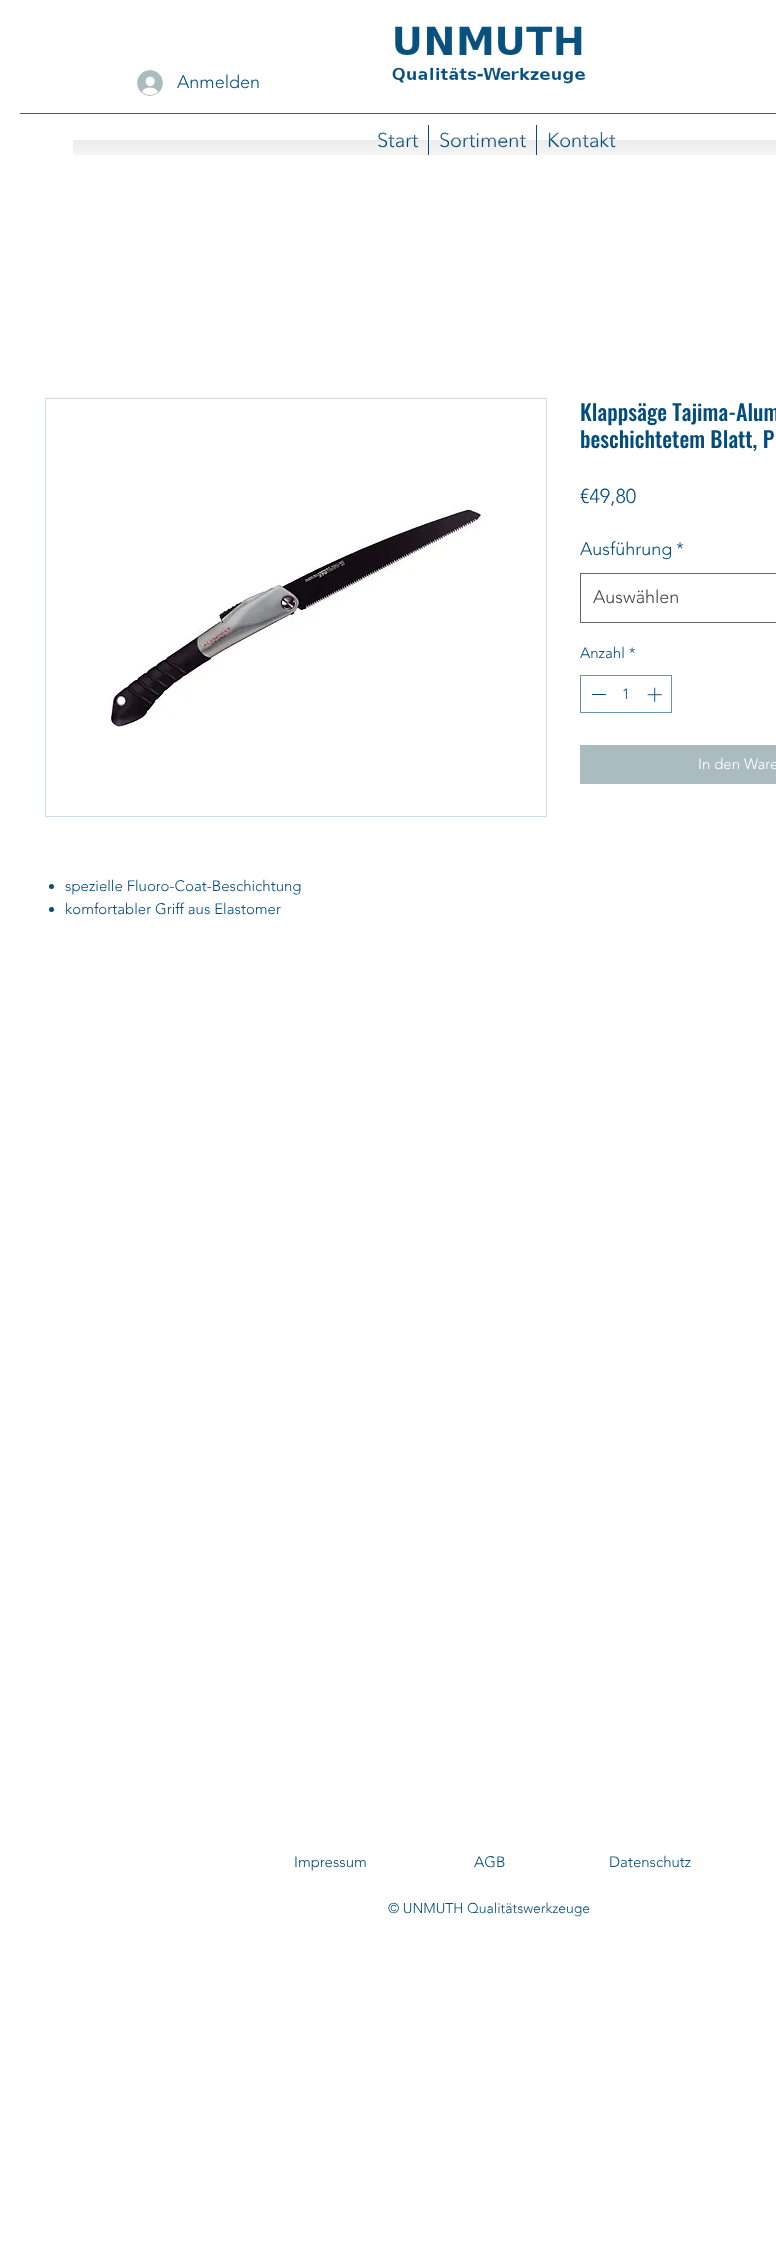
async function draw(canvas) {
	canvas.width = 776;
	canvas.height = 2250;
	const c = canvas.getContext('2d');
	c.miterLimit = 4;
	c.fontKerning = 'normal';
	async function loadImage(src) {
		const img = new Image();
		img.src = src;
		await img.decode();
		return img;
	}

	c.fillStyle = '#fff';
	c.fillRect(0, 0, 776, 2250);
	c.drawImage(await loadImage('img1.png'), 137, 70, 26, 26);
	c.font = '300 18px "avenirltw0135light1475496"';
	c.fillStyle = '#044c7c';
	c.fillText('Anmelden', 177, 88);
	c.drawImage(await loadImage('img2.png'), 392, 26, 195, 58);
	c.fillStyle = '#2a6790';
	c.fillRect(20, 113, 756, 1);
	c.drawImage(await loadImage('img3.png'), 73, 140, 703, 15);
	c.fillStyle = '#fff';
	c.fillRect(367, 140, 61, 15);
	c.font = '300 20px "avenirltw0135light1475496"';
	c.fillStyle = '#044c7c';
	c.fillText('Start', 377, 147);
	c.drawImage(await loadImage('img4.png'), 367, 132, 61, 23);
	c.fillStyle = '#fff';
	c.fillRect(429, 140, 107, 15);
	c.fillStyle = '#044c7c';
	c.fillRect(428, 125, 1, 30);
	c.fillText('Sortiment', 439, 147);
	c.drawImage(await loadImage('img5.png'), 429, 132, 107, 23);
	c.fillStyle = '#fff';
	c.fillRect(537, 140, 89, 15);
	c.fillStyle = '#044c7c';
	c.fillRect(536, 125, 1, 30);
	c.fillText('Kontakt', 547, 147);
	c.drawImage(await loadImage('img6.png'), 537, 131, 89, 24);
	c.font = '500 22px Oswald';
	c.fillText('Klappsäge Tajima-Alum', 580, 421);
	c.fillText('beschichtetem Blatt, P', 580, 448);
	c.font = '300 20px "avenirltw0135light1475496"';
	c.fillText('€49,80', 580, 503);
	c.font = '300 18px "avenirltw0135light1475496"';
	c.fillText('Ausführung', 580, 555);
	c.fillText('*', 676, 555);
	c.strokeStyle = '#666';
	c.strokeRect(580.5, 573.5, 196, 49);
	c.fillStyle = '#444';
	c.fillText('Auswählen', 593, 603);
	c.font = '300 15px "avenirltw0135light1475496"';
	c.fillStyle = '#044c7c';
	c.fillText('Anzahl *', 580, 658);
	c.strokeStyle = '#6894b0';
	c.strokeRect(580.5, 675.5, 91, 37);
	c.fillRect(592, 694, 14, 1);
	c.fillText('1', 622, 699);
	c.drawImage(await loadImage('img7.png'), 647, 687, 15, 15);
	c.fillStyle = '#aabcbf';
	c.fillRect(580, 745, 196, 39);
	c.fillStyle = '#fff';
	c.fillText('In den Ware', 698, 769);
	c.strokeStyle = '#cddbe5';
	c.strokeRect(45.5, 398.5, 501, 418);
	c.drawImage(await loadImage('img8.png'), 110, 507, 372, 220);
	c.fillStyle = '#044c7c';
	c.beginPath();
	c.arc(51.5, 886.5, 2.5, 0, 2 * Math.PI);
	c.fill();
	c.fillText('spezielle Fluoro-Coat-Beschichtung', 65, 891);
	c.beginPath();
	c.arc(51.5, 909.5, 2.5, 0, 2 * Math.PI);
	c.fill();
	for (const [text, x, y] of [
		['komfortabler Griff aus Elastomer', 65, 914],
		['Impressum', 294, 1867],
		['AGB', 474, 1867],
		['Datenschutz', 609, 1867],
	]) {
		c.fillText(text, x, y);
	}
	c.font = '300 14px "avenirltw0135light1475496"';
	c.fillText('© UNMUTH Qualitätswerkzeuge', 388, 1913);
}

draw(document.querySelector('canvas'));
